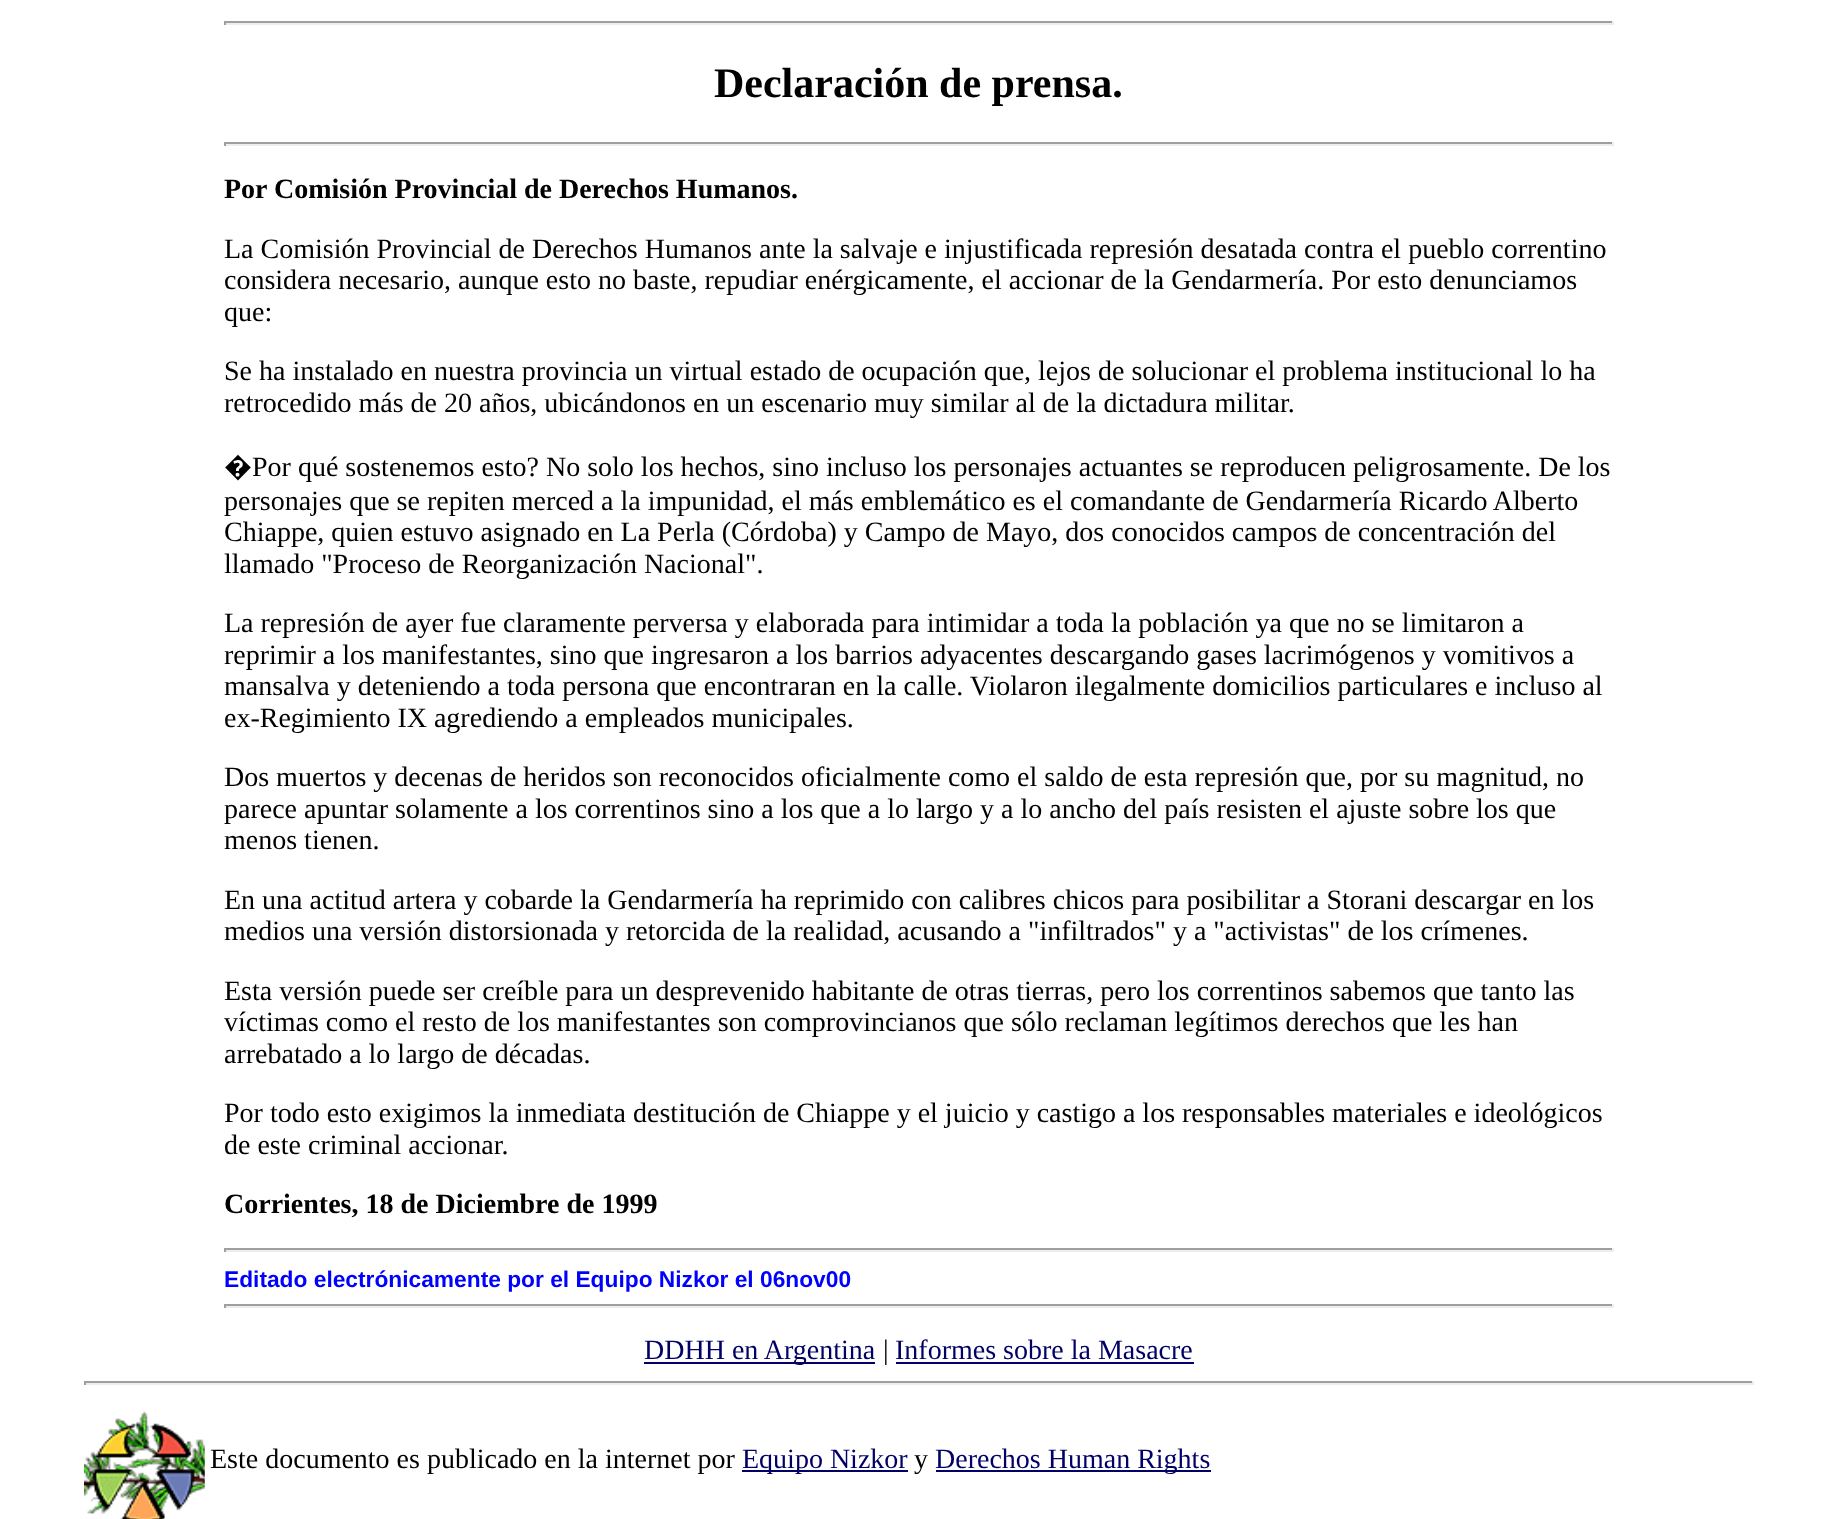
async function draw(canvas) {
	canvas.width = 1837;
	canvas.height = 1519;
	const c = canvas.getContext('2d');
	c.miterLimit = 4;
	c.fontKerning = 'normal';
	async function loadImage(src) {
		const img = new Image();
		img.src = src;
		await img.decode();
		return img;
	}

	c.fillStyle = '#fff';
	c.fillRect(0, 0, 1837, 1519);
	for (const [x, y, w, h, color] of [
		[224, 21, 1390, 2, '#9f9f9f'],
		[1612, 21, 2, 4, '#eee'],
		[224, 23, 1390, 2, '#eee'],
		[224, 21, 2, 4, '#9f9f9f'],
	]) {
		c.fillStyle = color;
		c.fillRect(x, y, w, h);
	}
	c.font = 'bold 42px Liberation Serif';
	c.fillStyle = '#000';
	c.fillText('Declaración de prensa.', 714, 97);
	for (const [x, y, w, h, color] of [
		[224, 142, 1390, 2, '#9f9f9f'],
		[1612, 142, 2, 4, '#eee'],
		[224, 144, 1390, 2, '#eee'],
		[224, 142, 2, 4, '#9f9f9f'],
	]) {
		c.fillStyle = color;
		c.fillRect(x, y, w, h);
	}
	c.font = 'bold 28px Liberation Serif';
	c.fillStyle = '#000';
	c.fillText('Por Comisión Provincial de Derechos Humanos.', 224, 198);
	c.font = '28px Liberation Serif';
	for (const [text, x, y] of [
		['La Comisión Provincial de Derechos Humanos ante la salvaje e injustificada represión desatada contra el pueblo correntino', 224, 258],
		['considera necesario, aunque esto no baste, repudiar enérgicamente, el accionar de la Gendarmería. Por esto denunciamos', 224, 289],
		['que:', 224, 321],
		['Se ha instalado en nuestra provincia un virtual estado de ocupación que, lejos de solucionar el problema institucional lo ha', 224, 380],
		['retrocedido más de 20 años, ubicándonos en un escenario muy similar al de la dictadura militar.', 224, 412],
	]) {
		c.fillText(text, x, y);
	}
	c.font = '28px Noto Sans';
	c.fillText('�', 224, 476);
	c.font = '28px Liberation Serif';
	for (const [text, x, y] of [
		['Por qué sostenemos esto? No solo los hechos, sino incluso los personajes actuantes se reproducen peligrosamente. De los', 252, 476],
		['personajes que se repiten merced a la impunidad, el más emblemático es el comandante de Gendarmería Ricardo Alberto', 224, 510],
		['Chiappe, quien estuvo asignado en La Perla (Córdoba) y Campo de Mayo, dos conocidos campos de concentración del', 224, 541],
		['llamado "Proceso de Reorganización Nacional".', 224, 573],
		['La represión de ayer fue claramente perversa y elaborada para intimidar a toda la población ya que no se limitaron a', 224, 632],
		['reprimir a los manifestantes, sino que ingresaron a los barrios adyacentes descargando gases lacrimógenos y vomitivos a', 224, 664],
		['mansalva y deteniendo a toda persona que encontraran en la calle. Violaron ilegalmente domicilios particulares e incluso al', 224, 695],
		['ex-Regimiento IX agrediendo a empleados municipales.', 224, 727],
		['Dos muertos y decenas de heridos son reconocidos oficialmente como el saldo de esta represión que, por su magnitud, no', 224, 786],
		['parece apuntar solamente a los correntinos sino a los que a lo largo y a lo ancho del país resisten el ajuste sobre los que', 224, 818],
		['menos tienen.', 224, 849],
		['En una actitud artera y cobarde la Gendarmería ha reprimido con calibres chicos para posibilitar a Storani descargar en los', 224, 909],
		['medios una versión distorsionada y retorcida de la realidad, acusando a "infiltrados" y a "activistas" de los crímenes.', 224, 940],
		['Esta versión puede ser creíble para un desprevenido habitante de otras tierras, pero los correntinos sabemos que tanto las', 224, 1000],
		['víctimas como el resto de los manifestantes son comprovincianos que sólo reclaman legítimos derechos que les han', 224, 1031],
		['arrebatado a lo largo de décadas.', 224, 1063],
		['Por todo esto exigimos la inmediata destitución de Chiappe y el juicio y castigo a los responsables materiales e ideológicos', 224, 1122],
		['de este criminal accionar.', 224, 1154],
	]) {
		c.fillText(text, x, y);
	}
	c.font = 'bold 28px Liberation Serif';
	c.fillText('Corrientes, 18 de Diciembre de 1999', 224, 1213);
	for (const [x, y, w, h, color] of [
		[224, 1248, 1390, 2, '#9f9f9f'],
		[1612, 1248, 2, 4, '#eee'],
		[224, 1250, 1390, 2, '#eee'],
		[224, 1248, 2, 4, '#9f9f9f'],
	]) {
		c.fillStyle = color;
		c.fillRect(x, y, w, h);
	}
	c.font = 'bold 22.75px Liberation Sans';
	c.fillStyle = '#00f';
	c.fillText('Editado electrónicamente por el Equipo Nizkor el 06nov00', 224, 1287);
	for (const [x, y, w, h, color] of [
		[224, 1304, 1390, 2, '#9f9f9f'],
		[1612, 1304, 2, 4, '#eee'],
		[224, 1306, 1390, 2, '#eee'],
		[224, 1304, 2, 4, '#9f9f9f'],
		[644, 1362, 231, 2, '#006'],
	]) {
		c.fillStyle = color;
		c.fillRect(x, y, w, h);
	}
	c.font = '28px Liberation Serif';
	c.fillText('DDHH en Argentina', 644, 1359);
	c.fillStyle = '#000';
	c.fillText('|', 883, 1359);
	c.fillStyle = '#006';
	c.fillText('Informes sobre la Masacre', 895, 1359);
	for (const [x, y, w, h, color] of [
		[896, 1362, 298, 2, '#006'],
		[84, 1381, 1670, 2, '#9f9f9f'],
		[1752, 1381, 2, 4, '#eee'],
		[84, 1383, 1670, 2, '#eee'],
		[84, 1381, 2, 4, '#9f9f9f'],
	]) {
		c.fillStyle = color;
		c.fillRect(x, y, w, h);
	}
	c.drawImage(await loadImage('img1.png'), 84, 1411, 121, 108);
	c.fillStyle = '#000';
	c.fillText('Este documento es publicado en la internet por', 210, 1468);
	c.fillStyle = '#006';
	c.fillRect(742, 1470, 166, 2);
	c.fillText('Equipo Nizkor', 742, 1468);
	c.fillStyle = '#000';
	c.fillText('y', 914, 1468);
	c.fillStyle = '#006';
	c.fillRect(936, 1470, 275, 2);
	c.fillText('Derechos Human Rights', 935, 1468);
}

draw(document.querySelector('canvas'));
